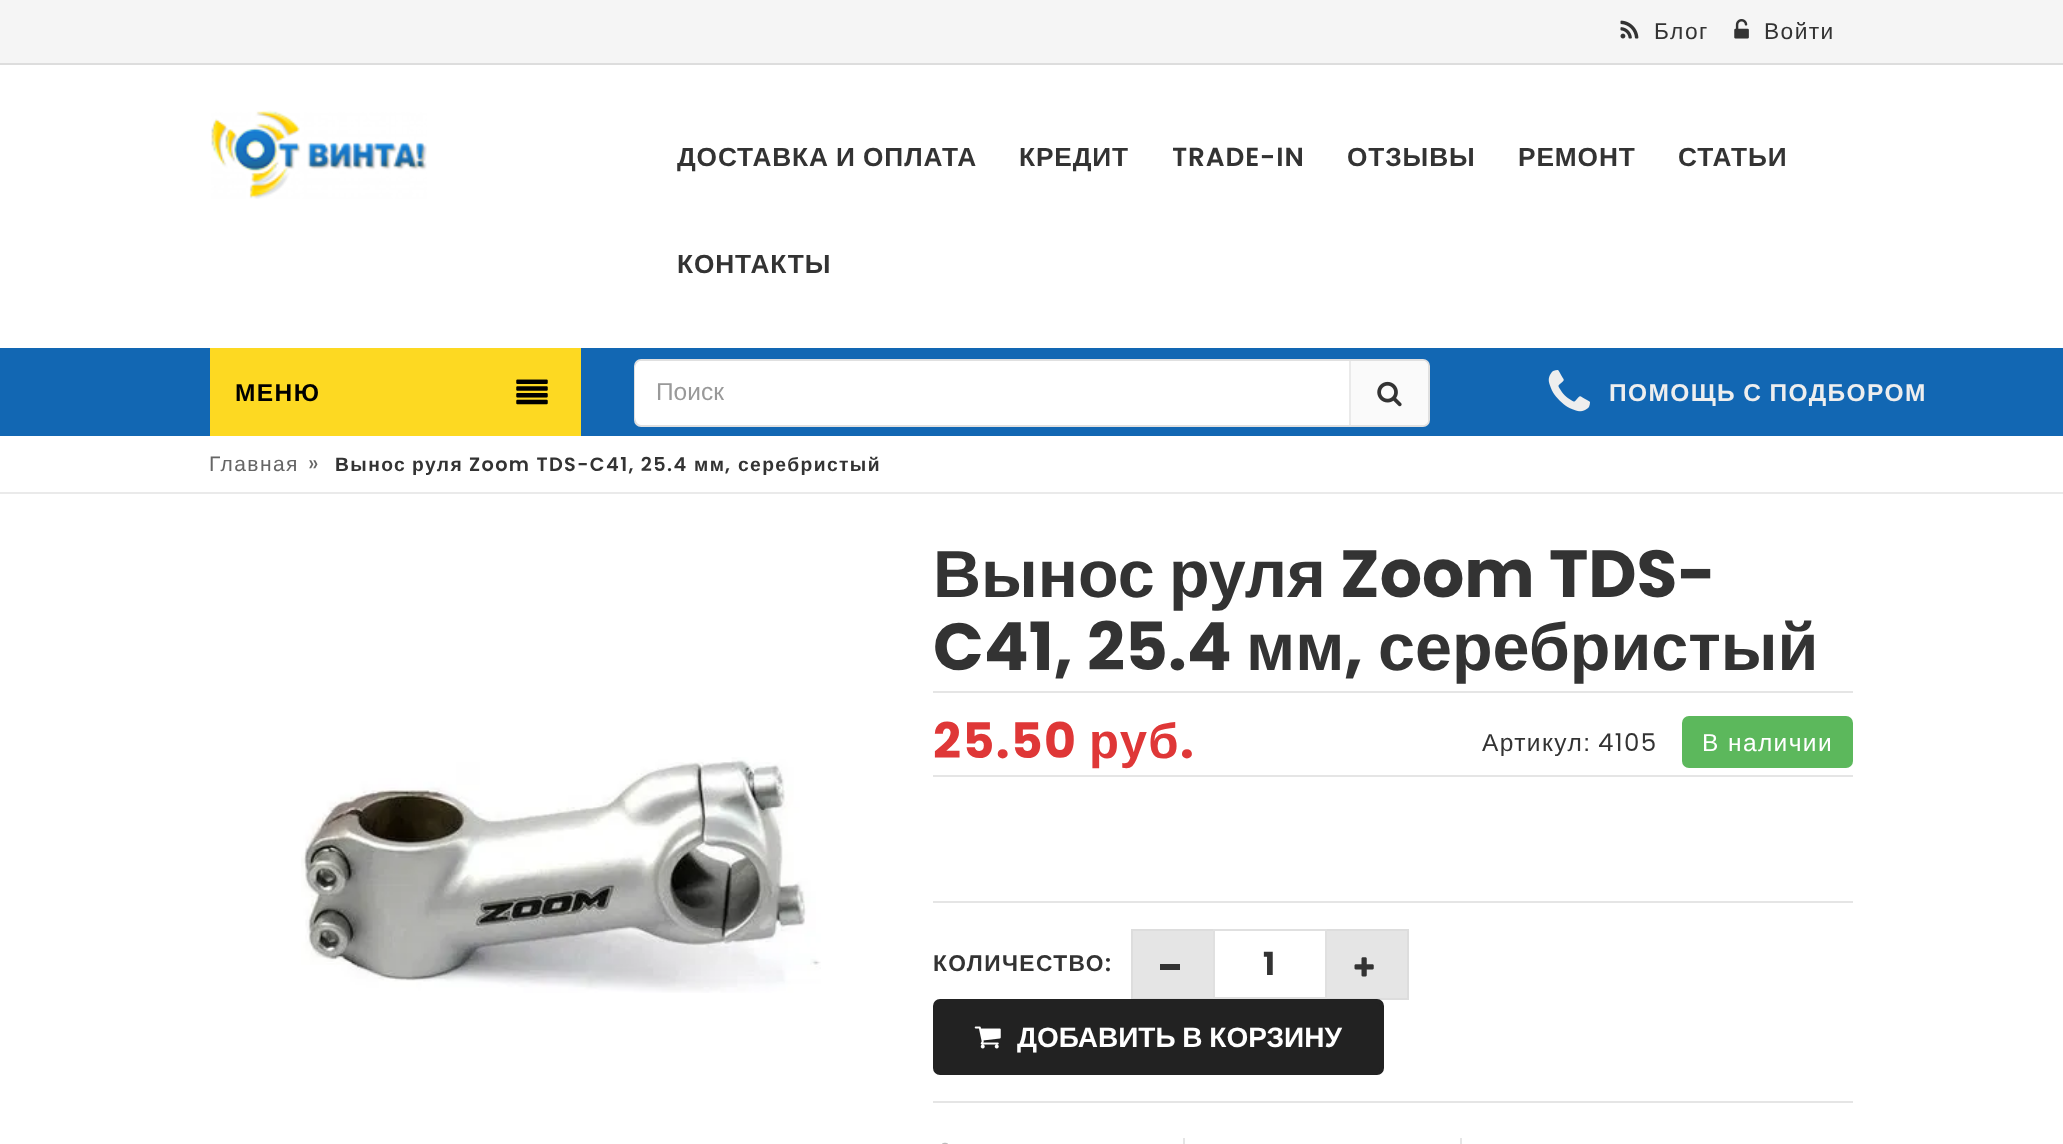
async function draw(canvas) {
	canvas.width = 2063;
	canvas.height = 1144;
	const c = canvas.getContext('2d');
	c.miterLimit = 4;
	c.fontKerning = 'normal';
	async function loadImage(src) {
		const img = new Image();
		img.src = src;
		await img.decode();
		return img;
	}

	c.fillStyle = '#fff';
	c.fillRect(0, 0, 2063, 1144);
	c.fillStyle = '#f5f5f5';
	c.fillRect(0, 0, 2063, 63);
	c.fillStyle = '#ddd';
	c.fillRect(0, 63, 2063, 2);
	c.drawImage(await loadImage('img1.png'), 1620, 20, 19, 19);
	c.letterSpacing = '1.4px';
	c.font = '22.75px Liberation Sans';
	c.fillStyle = '#333';
	c.fillText('Блог', 1654, 39);
	c.drawImage(await loadImage('img2.png'), 1734, 19, 15, 20);
	c.fillText('Войти', 1764, 39);
	c.drawImage(await loadImage('img3.png'), 211, 110, 216, 89);
	c.letterSpacing = '0.9px';
	c.wordSpacing = '-1px';
	c.font = 'bold 26.25px Liberation Sans';
	c.fillText('ДОСТАВКА И ОПЛАТА', 677, 166);
	c.wordSpacing = '0px';
	c.fillText('КРЕДИТ', 1019, 166);
	c.save();
	c.beginPath();
	c.rect(1173, 109, 131, 96);
	c.clip();
	c.font = '600 26.25px Poppins';
	c.fillText('TRADE-IN', 1172, 166);
	c.restore();
	c.save();
	c.beginPath();
	c.rect(1348, 109, 127, 96);
	c.clip();
	c.fillText('ОТЗЫВЫ', 1347, 166);
	c.restore();
	for (const [text, x, y] of [
		['РЕМОНТ', 1518, 166],
		['СТАТЬИ', 1678, 166],
		['КОНТАКТЫ', 677, 273],
	]) {
		c.fillText(text, x, y);
	}
	c.fillStyle = '#1267b3';
	c.fillRect(0, 348, 2063, 88);
	c.fillStyle = '#fdd922';
	c.fillRect(210, 348, 371, 88);
	c.letterSpacing = '1.4px';
	c.font = 'bold 24.5px Liberation Sans';
	c.fillStyle = '#000';
	c.fillText('МЕНЮ', 235, 401);
	c.drawImage(await loadImage('img4.png'), 516, 379, 32, 26);
	c.fillStyle = '#fff';
	c.beginPath();
	c.roundRect(635, 360, 794, 66, 6);
	c.fill();
	c.strokeStyle = '#e0e0e0';
	c.lineWidth = 2;
	c.stroke();
	c.beginPath();
	c.roundRect(635, 361, 445, 63, [7, 0, 0, 7]);
	c.fill();
	c.letterSpacing = '0px';
	c.font = '24.5px Liberation Sans';
	c.fillStyle = '#999';
	c.fillText('Поиск', 656, 400);
	c.fillStyle = '#fafafa';
	c.beginPath();
	c.roundRect(1349, 361, 79, 64, [0, 5, 5, 0]);
	c.fill();
	c.fillStyle = '#eaeaea';
	c.fillRect(1349, 361, 2, 64);
	c.drawImage(await loadImage('img5.png'), 1377, 381, 25, 26);
	c.drawImage(await loadImage('img6.png'), 1548, 370, 42, 42);
	c.letterSpacing = '1.4px';
	c.wordSpacing = '-1px';
	c.font = 'bold 24.5px Liberation Sans';
	c.fillStyle = '#eee';
	c.fillText('ПОМОЩЬ С ПОДБОРОМ', 1609, 401);
	c.fillStyle = '#eaeaea';
	c.fillRect(0, 492, 2063, 2);
	c.wordSpacing = '0px';
	c.font = '21px Liberation Sans';
	c.fillStyle = '#666';
	c.fillText('Главная', 209, 471);
	c.font = '22.75px Poppins';
	c.fillText('»', 308, 471);
	c.font = 'bold 19.25px Liberation Sans';
	c.fillStyle = '#333';
	c.fillText('Вынос', 335, 471);
	c.fillText('руля', 412, 471);
	c.font = '600 19.25px Poppins';
	c.fillText('Zoom TDS-C41, 25.4', 469, 471);
	c.font = 'bold 19.25px Liberation Sans';
	c.fillText('мм', 694, 471);
	c.font = '600 19.25px Poppins';
	c.fillText(',', 725, 471);
	c.font = 'bold 19.25px Liberation Sans';
	c.fillText('серебристый', 738, 471);
	c.drawImage(await loadImage('img7.png'), 301, 757, 520, 236);
	c.fillStyle = '#e5e5e5';
	c.fillRect(933, 691, 920, 2);
	c.letterSpacing = '0px';
	c.font = 'bold 66.5px Liberation Sans';
	c.fillStyle = '#333';
	c.fillText('Вынос', 933, 597);
	c.fillText('руля', 1169, 597);
	c.font = 'bold 66.5px Poppins';
	c.fillText('Zoom TDS-', 1340, 597);
	c.fillText('C41, 25.4', 933, 670);
	c.font = 'bold 66.5px Liberation Sans';
	c.fillText('мм', 1246, 670);
	c.font = 'bold 66.5px Poppins';
	c.fillText(',', 1344, 670);
	c.font = 'bold 66.5px Liberation Sans';
	c.fillText('серебристый', 1378, 670);
	c.fillStyle = '#e5e5e5';
	c.fillRect(933, 775, 920, 2);
	c.letterSpacing = '1.4px';
	c.font = 'bold 49px Poppins';
	c.fillStyle = '#df3737';
	c.fillText('25.50', 933, 758);
	c.font = 'bold 49px Liberation Sans';
	c.fillText('руб', 1089, 758);
	c.font = 'bold 49px Poppins';
	c.fillText('.', 1180, 758);
	c.font = '24.5px Liberation Sans';
	c.fillStyle = '#333';
	c.fillText('Артикул:', 1482, 751);
	c.font = '24.5px Poppins';
	c.fillText('4105', 1598, 751);
	c.fillStyle = '#5cb85c';
	c.beginPath();
	c.roundRect(1682, 716, 171, 52, 7);
	c.fill();
	c.font = '24.5px Liberation Sans';
	c.fillStyle = '#fff';
	c.fillText('В наличии', 1702, 751);
	c.fillStyle = '#e5e5e5';
	c.fillRect(933, 901, 920, 2);
	c.fillRect(933, 1101, 920, 2);
	c.font = 'bold 22.75px Liberation Sans';
	c.fillStyle = '#333';
	c.fillText('КОЛИЧЕСТВО', 933, 971);
	c.font = '600 22.75px Poppins';
	c.fillText(':', 1105, 971);
	for (const [x, y, w, h, color] of [
		[1133, 931, 80, 67, '#e5e5e5'],
		[1131, 929, 82, 2, '#ddd'],
		[1131, 998, 82, 1, '#ddd'],
		[1131, 929, 2, 70, '#ddd'],
		[1160, 964, 20, 6, '#333'],
	]) {
		c.fillStyle = color;
		c.fillRect(x, y, w, h);
	}
	c.strokeRect(1214, 930, 112, 68);
	c.letterSpacing = '0px';
	c.font = 'bold 32px Poppins';
	c.fillText('1', 1263, 975);
	for (const [x, y, w, h, color] of [
		[1327, 931, 80, 67, '#e5e5e5'],
		[1327, 929, 82, 2, '#ddd'],
		[1407, 929, 2, 70, '#ddd'],
		[1327, 998, 82, 2, '#ddd'],
	]) {
		c.fillStyle = color;
		c.fillRect(x, y, w, h);
	}
	c.drawImage(await loadImage('img8.png'), 1354, 957, 20, 20);
	c.fillStyle = '#222';
	c.beginPath();
	c.roundRect(935, 1001, 447, 72, 5);
	c.fill();
	c.strokeStyle = '#222';
	c.lineWidth = 4;
	c.stroke();
	c.drawImage(await loadImage('img9.png'), 974, 1026, 27, 23);
	c.wordSpacing = '-1px';
	c.font = 'bold 28px Liberation Sans';
	c.fillStyle = '#fff';
	c.fillText('ДОБАВИТЬ В КОРЗИНУ', 1017, 1047);
	c.fillStyle = '#e5e5e5';
	c.fillRect(1183, 1138, 2, 6);
	c.drawImage(await loadImage('img10.png'), 942, 1142, 6, 2);
	c.fillRect(1460, 1138, 2, 6);
}

draw(document.querySelector('canvas'));
